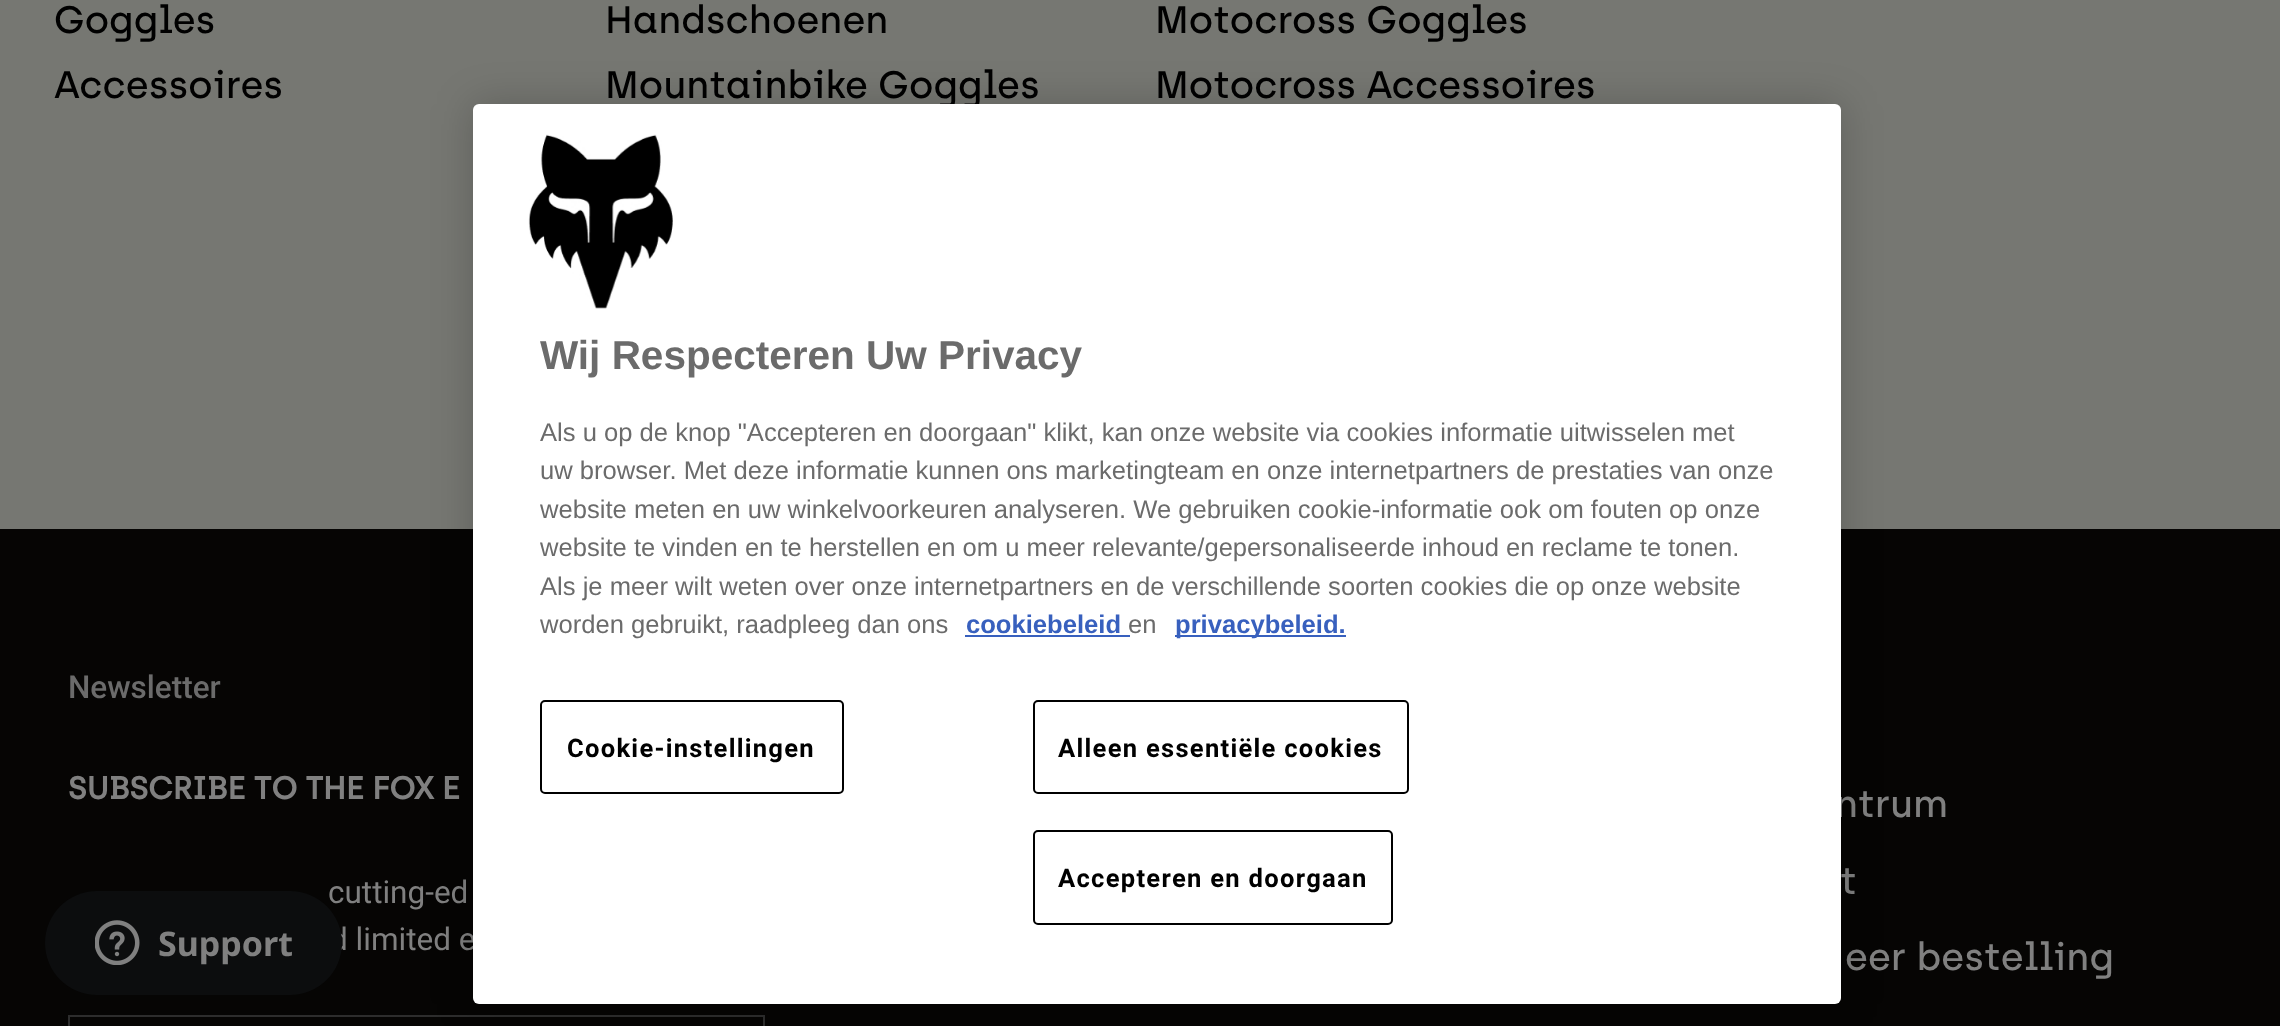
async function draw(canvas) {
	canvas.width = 2280;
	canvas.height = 1026;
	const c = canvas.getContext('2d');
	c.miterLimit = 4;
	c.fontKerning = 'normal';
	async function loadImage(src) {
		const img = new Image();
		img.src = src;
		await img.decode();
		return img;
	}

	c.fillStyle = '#767772';
	c.fillRect(0, 0, 2280, 1026);
	c.font = '500 38.25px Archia';
	c.fillStyle = '#000';
	for (const [text, x, y] of [
		['Goggles', 54, 33],
		['Accessoires', 54, 98],
		['Handschoenen', 605, 33],
		['Mountainbike Goggles', 605, 98],
		['Motocross Goggles', 1155, 33],
		['Motocross Accessoires', 1155, 98],
	]) {
		c.fillText(text, x, y);
	}
	c.fillStyle = '#060504';
	c.fillRect(0, 529, 2280, 497);
	c.font = '500 31.5px Roboto';
	c.fillStyle = '#6b6b6b';
	c.fillText('Newsletter', 68, 698);
	c.font = 'bold 31.5px Archia';
	c.fillStyle = '#808080';
	c.fillText('SUBSCRIBE TO THE FOX E', 68, 799);
	c.font = '31.5px Roboto';
	c.fillText('cutting-ed', 328, 903);
	c.fillText('d limited e', 330, 950);
	c.strokeStyle = '#2d2d2d';
	c.lineWidth = 2;
	c.strokeRect(69, 1016, 695, 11);
	c.font = '500 38.25px Archia';
	for (const [text, x, y] of [
		['ntrum', 1835, 817],
		['t', 1840, 894],
		['eer bestelling', 1845, 970],
	]) {
		c.fillText(text, x, y);
	}
	c.fillStyle = '#0c0d0e';
	c.beginPath();
	c.roundRect(45, 891, 297, 104, 52);
	c.fill();
	c.drawImage(await loadImage('img1.png'), 95, 920, 45, 45);
	c.font = 'bold 34px Noto Sans';
	c.fillStyle = '#808080';
	c.fillText('Support', 158, 956);
	c.fillStyle = '#00000033';
	c.filter = 'blur(20px)';
	c.beginPath();
	c.roundRect(473, 104, 1368, 900, 6);
	c.fill();
	c.filter = 'none';
	c.fillStyle = '#fff';
	c.beginPath();
	c.roundRect(473, 104, 1368, 900, 6);
	c.fill();
	c.drawImage(await loadImage('img2.png'), 528, 134, 145, 175);
	c.font = 'bold 40.5px Liberation Sans';
	c.fillStyle = '#6b6b6b';
	c.fillText('Wij Respecteren Uw Privacy', 540, 369);
	c.font = '25.6px Liberation Sans';
	for (const [text, x, y] of [
		['Als u op de knop "Accepteren en doorgaan" klikt, kan onze website via cookies informatie uitwisselen met', 540, 441],
		['uw browser. Met deze informatie kunnen ons marketingteam en onze internetpartners de prestaties van onze', 540, 479],
		['website meten en uw winkelvoorkeuren analyseren. We gebruiken cookie-informatie ook om fouten op onze', 540, 518],
		['website te vinden en te herstellen en om u meer relevante/gepersonaliseerde inhoud en reclame te tonen.', 540, 556],
		['Als je meer wilt weten over onze internetpartners en de verschillende soorten cookies die op onze website', 540, 595],
		['worden gebruikt, raadpleeg dan ons', 540, 633],
	]) {
		c.fillText(text, x, y);
	}
	c.font = 'bold 25.6px Liberation Sans';
	c.fillStyle = '#3860be';
	c.fillText('cookiebeleid', 966, 633);
	c.fillRect(965, 635, 165, 2);
	c.font = '25.6px Liberation Sans';
	c.fillStyle = '#6b6b6b';
	c.fillText('en', 1128, 633);
	c.fillStyle = '#3860be';
	c.fillRect(1175, 635, 171, 2);
	c.font = 'bold 25.6px Liberation Sans';
	c.fillText('privacybeleid.', 1175, 633);
	c.beginPath();
	c.roundRect(541, 701, 302, 92, 4);
	c.strokeStyle = '#000';
	c.stroke();
	c.letterSpacing = '1.25px';
	c.font = 'bold 25.6px Roboto';
	c.fillStyle = '#000';
	c.fillText('Cookie-instellingen', 567, 757);
	c.beginPath();
	c.roundRect(1034, 701, 374, 92, 4);
	c.stroke();
	c.fillText('Alleen essentiële cookies', 1058, 757);
	c.beginPath();
	c.roundRect(1034, 831, 358, 93, 4);
	c.stroke();
	c.fillText('Accepteren en doorgaan', 1058, 887);
}

draw(document.querySelector('canvas'));
